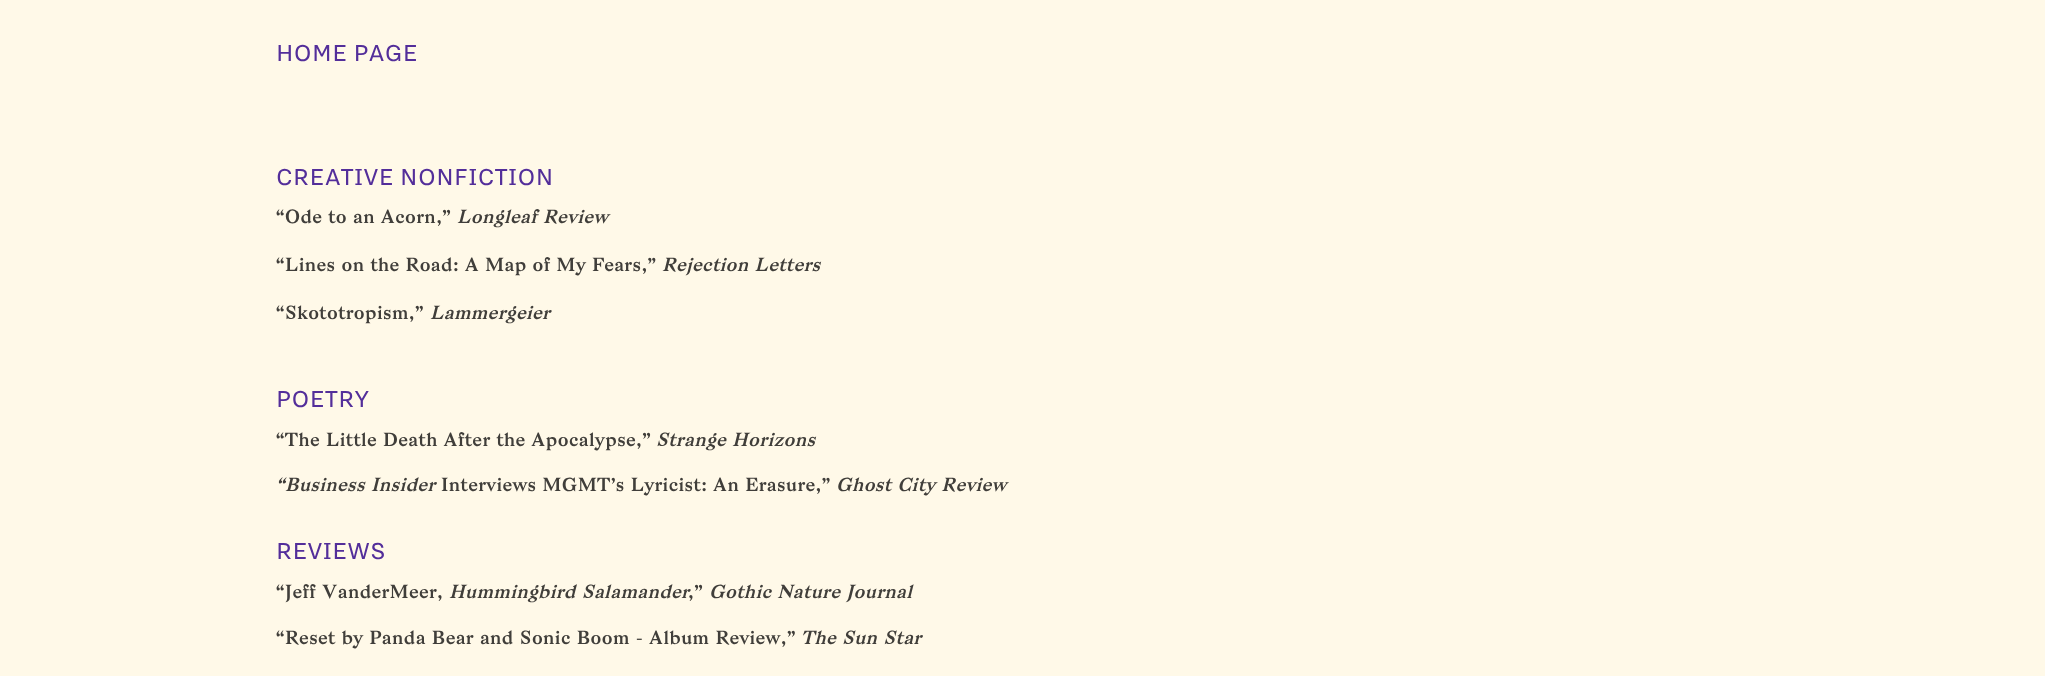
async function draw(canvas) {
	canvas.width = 2045;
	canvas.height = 676;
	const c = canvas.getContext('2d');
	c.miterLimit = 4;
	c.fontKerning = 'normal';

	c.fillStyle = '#fff9e8';
	c.fillRect(0, 0, 2045, 676);
	c.letterSpacing = '0.4px';
	c.font = '29.25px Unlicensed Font';
	c.fillStyle = '#532e9a';
	c.fillText('HOME PAGE', 276, 61);
	c.fillText('CREATIVE NONFICTION', 276, 185);
	c.font = '18.5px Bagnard';
	c.fillStyle = '#403e3a';
	c.fillText('“Ode to an Acorn,”', 276, 223);
	c.font = 'italic 18.5px Bagnard';
	c.fillText('Longleaf Review', 457, 223);
	c.font = '18.5px Bagnard';
	c.fillText('“Lines on the Road: A Map of My Fears,”', 276, 271);
	c.font = 'italic 18.5px Bagnard';
	c.fillText('Rejection Letters', 662, 271);
	c.font = '18.5px Bagnard';
	c.fillText('“Skototropism,”', 276, 319);
	c.font = 'italic 18.5px Bagnard';
	c.fillText('Lammergeier', 430, 319);
	c.font = '29.25px Unlicensed Font';
	c.fillStyle = '#532e9a';
	c.fillText('POETRY', 276, 407);
	c.font = '18.5px Bagnard';
	c.fillStyle = '#403e3a';
	c.fillText('“The Little Death After the Apocalypse,”', 276, 446);
	c.font = 'italic 18.5px Bagnard';
	c.fillText('Strange Horizons', 656, 446);
	c.fillText('“Business Insider', 276, 491);
	c.font = '18.5px Bagnard';
	c.fillText('Interviews MGMT’s Lyricist: An Erasure,”', 441, 491);
	c.font = 'italic 18.5px Bagnard';
	c.fillText('Ghost City Review', 836, 491);
	c.font = '29.25px Unlicensed Font';
	c.fillStyle = '#532e9a';
	c.fillText('REVIEWS', 276, 559);
	c.font = '18.5px Bagnard';
	c.fillStyle = '#403e3a';
	c.fillText('“Jeff VanderMeer,', 276, 598);
	c.font = 'italic 18.5px Bagnard';
	c.fillText('Hummingbird Salamander', 449, 598);
	c.font = '18.5px Bagnard';
	c.fillText(',”', 688, 598);
	c.font = 'italic 18.5px Bagnard';
	c.fillText('Gothic Nature Journal', 709, 598);
	c.font = '18.5px Bagnard';
	c.fillText('“Reset by Panda Bear and Sonic Boom - Album Review,”', 276, 644);
	c.font = 'italic 18.5px Bagnard';
	c.fillText('The Sun Star', 801, 644);
}

draw(document.querySelector('canvas'));
